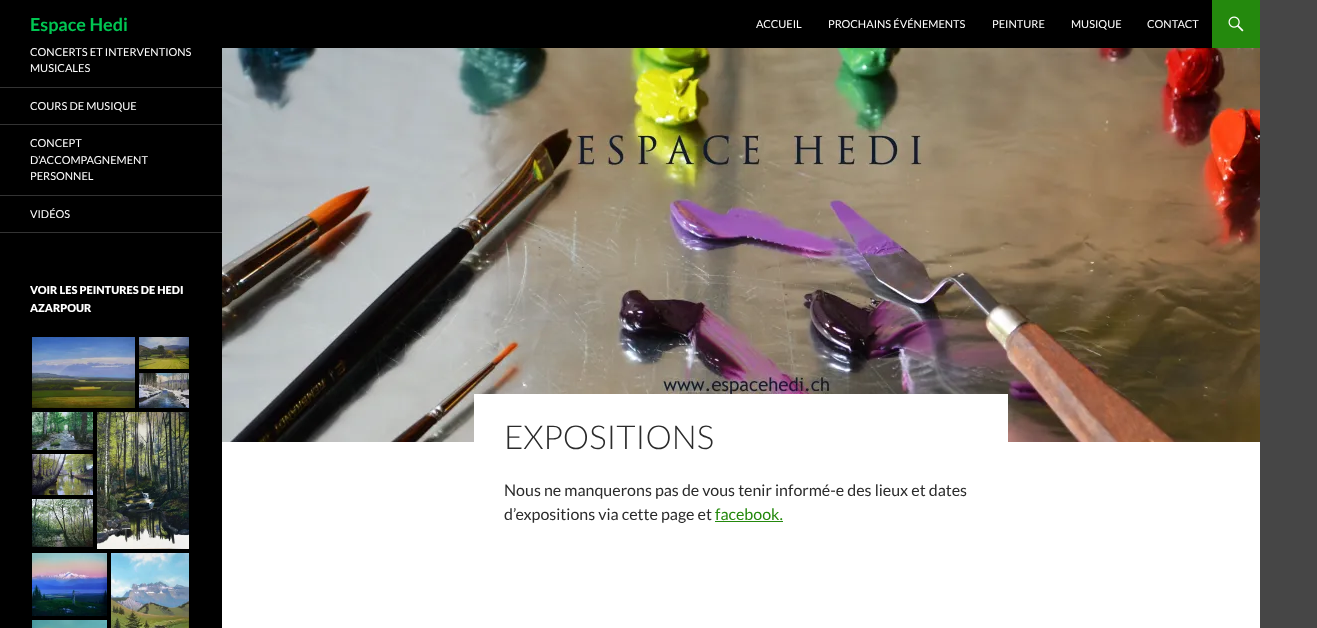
async function draw(canvas) {
	canvas.width = 1317;
	canvas.height = 628;
	const c = canvas.getContext('2d');
	c.miterLimit = 4;
	c.fontKerning = 'normal';
	async function loadImage(src) {
		const img = new Image();
		img.src = src;
		await img.decode();
		return img;
	}

	c.fillStyle = '#464646';
	c.fillRect(0, 0, 1317, 628);
	c.fillStyle = '#fff';
	c.fillRect(222, 442, 1038, 186);
	c.fillStyle = '#000';
	c.fillRect(0, 0, 1212, 48);
	c.font = 'bold 18px Lato';
	c.fillStyle = '#00c652';
	c.fillText('Espace Hedi', 30, 31);
	c.font = '11px Lato';
	c.fillStyle = '#fff';
	for (const [text, x, y] of [
		['ACCUEIL', 756, 28],
		['PROCHAINS ÉVÉNEMENTS', 828, 28],
		['PEINTURE', 992, 28],
		['MUSIQUE', 1071, 28],
		['CONTACT', 1147, 28],
	]) {
		c.fillText(text, x, y);
	}
	c.fillStyle = '#24890d';
	c.fillRect(1212, 0, 48, 48);
	c.drawImage(await loadImage('img1.png'), 1228, 16, 16, 16);
	c.fillStyle = '#000';
	c.fillRect(0, 48, 222, 580);
	c.fillStyle = '#333';
	c.fillRect(0, 232, 222, 1);
	c.fillStyle = '#fff';
	c.fillText('CONCERTS ET INTERVENTIONS', 30, 56);
	c.fillText('MUSICALES', 30, 72);
	c.fillStyle = '#333';
	c.fillRect(0, 87, 222, 1);
	c.fillStyle = '#fff';
	c.fillText('COURS DE MUSIQUE', 30, 110);
	c.fillStyle = '#333';
	c.fillRect(0, 124, 222, 1);
	c.fillStyle = '#fff';
	for (const [text, x, y] of [
		['CONCEPT', 30, 147],
		['D’ACCOMPAGNEMENT', 30, 164],
		['PERSONNEL', 30, 180],
	]) {
		c.fillText(text, x, y);
	}
	c.fillStyle = '#333';
	c.fillRect(0, 195, 222, 1);
	c.fillStyle = '#fff';
	c.fillText('VIDÉOS', 30, 218);
	c.font = '900 11px Lato';
	c.fillText('VOIR LES PEINTURES DE HEDI', 30, 294);
	c.fillText('AZARPOUR', 30, 312);
	c.drawImage(await loadImage('img2.png'), 32, 337, 103, 71);
	c.drawImage(await loadImage('img3.png'), 139, 337, 50, 32);
	c.drawImage(await loadImage('img4.png'), 139, 373, 50, 35);
	c.drawImage(await loadImage('img5.png'), 32, 412, 61, 38);
	c.drawImage(await loadImage('img6.png'), 32, 454, 61, 41);
	c.drawImage(await loadImage('img7.png'), 32, 499, 61, 48);
	c.drawImage(await loadImage('img8.png'), 97, 412, 92, 137);
	c.drawImage(await loadImage('img9.png'), 32, 553, 75, 63);
	c.drawImage(await loadImage('img10.png'), 32, 620, 75, 8);
	c.drawImage(await loadImage('img11.png'), 111, 553, 78, 75);
	c.drawImage(await loadImage('img12.png'), 222, 48, 1038, 394);
	c.fillRect(474, 394, 534, 48);
	c.font = '300 33px Lato';
	c.fillStyle = '#2b2b2b';
	c.fillText('EXPOSITIONS', 504, 449);
	c.font = '16px Lato';
	c.fillText('Nous ne manquerons pas de vous tenir informé-e des lieux et dates', 504, 496);
	c.fillText('d’expositions via cette page et', 504, 520);
	c.fillStyle = '#24890d';
	c.fillText('facebook.', 715, 520);
	c.fillRect(715, 521, 68, 1);
}

draw(document.querySelector('canvas'));
